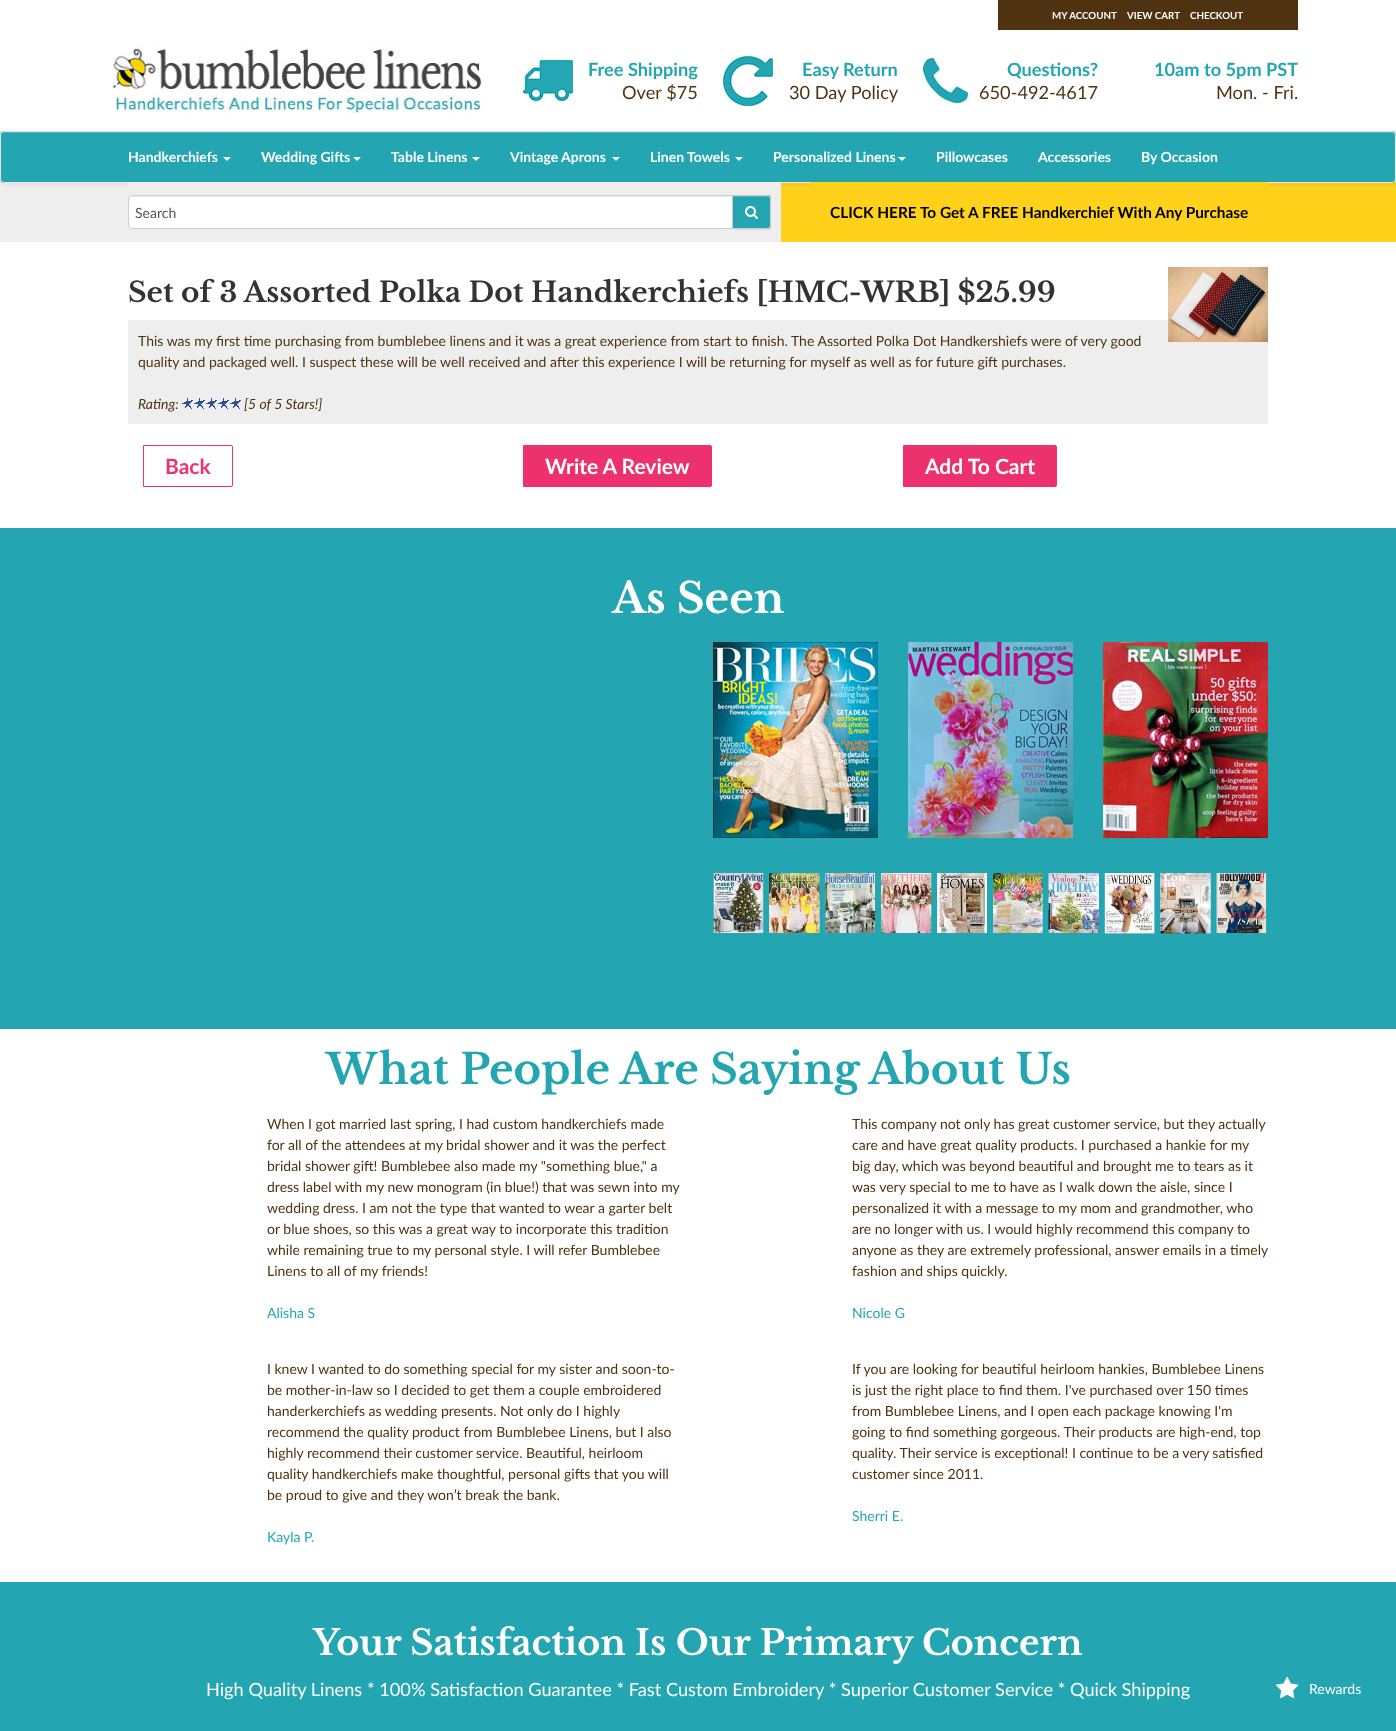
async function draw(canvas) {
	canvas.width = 1396;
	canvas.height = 1731;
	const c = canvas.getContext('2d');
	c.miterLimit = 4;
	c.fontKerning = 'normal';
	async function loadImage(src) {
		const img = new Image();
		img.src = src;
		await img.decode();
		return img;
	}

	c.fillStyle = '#fff';
	c.fillRect(0, 0, 1396, 1731);
	c.fillStyle = '#4f3310';
	c.fillRect(998, 0, 300, 30);
	c.font = 'bold 9.75px Lato';
	c.fillStyle = '#fff';
	for (const [text, x, y] of [
		['MY ACCOUNT', 1052, 19],
		['VIEW CART', 1127, 19],
		['CHECKOUT', 1190, 19],
	]) {
		c.fillText(text, x, y);
	}
	c.drawImage(await loadImage('img1.png'), 113, 45, 370, 69);
	c.drawImage(await loadImage('img2.png'), 523, 60, 50, 41);
	c.font = 'bold 18.2px Lato';
	c.fillStyle = '#24a6b2';
	c.fillText('Free Shipping', 588, 76);
	c.font = '18.2px Lato';
	c.fillStyle = '#4f3310';
	c.fillText('Over $75', 622, 99);
	c.drawImage(await loadImage('img3.png'), 723, 56, 50, 50);
	c.font = 'bold 18.2px Lato';
	c.fillStyle = '#24a6b2';
	c.fillText('Easy Return', 802, 76);
	c.font = '18.2px Lato';
	c.fillStyle = '#4f3310';
	c.fillText('30 Day Policy', 789, 99);
	c.drawImage(await loadImage('img4.png'), 923, 58, 45, 45);
	c.font = 'bold 18.2px Lato';
	c.fillStyle = '#24a6b2';
	c.fillText('Questions?', 1007, 76);
	c.font = '18.2px Lato';
	c.fillStyle = '#4f3310';
	c.fillText('650-492-4617', 979, 99);
	c.font = 'bold 18.2px Lato';
	c.fillStyle = '#24a6b2';
	c.fillText('10am to 5pm PST', 1154, 76);
	c.font = '18.2px Lato';
	c.fillStyle = '#4f3310';
	c.fillText('Mon. - Fri.', 1216, 99);
	c.drawImage(await loadImage('img5.png'), 0, 182, 1396, 60);
	c.fillStyle = '#00000012';
	c.filter = 'blur(2.5px)';
	c.beginPath();
	c.roundRect(0, 132, 1396, 52, 4);
	c.fill();
	c.filter = 'none';
	c.fillStyle = '#24a6b2';
	c.beginPath();
	c.roundRect(0, 131, 1396, 52, 4);
	c.fill();
	c.fillStyle = '#45b3be';
	c.beginPath();
	c.moveTo(4, 133);
	c.lineTo(1392, 133);
	c.bezierCurveTo(1394, 133, 1395, 134, 1395, 136);
	c.lineTo(1395, 135);
	c.bezierCurveTo(1395, 133, 1394, 132, 1392, 132);
	c.lineTo(4, 132);
	c.bezierCurveTo(2, 132, 1, 133, 1, 135);
	c.lineTo(1, 136);
	c.bezierCurveTo(1, 134, 2, 133, 4, 133);
	c.closePath();
	c.fill();
	c.beginPath();
	c.roundRect(0.5, 131.5, 1395, 51, 3.5);
	c.strokeStyle = '#e7e7e7';
	c.stroke();
	c.font = 'bold 14px Lato';
	c.fillStyle = '#fff';
	c.fillText('Handkerchiefs', 128, 162);
	c.beginPath();
	c.moveTo(223, 157);
	c.lineTo(231, 157);
	c.lineTo(227, 161);
	c.closePath();
	c.fill();
	c.fillText('Wedding Gifts', 261, 162);
	c.beginPath();
	c.moveTo(353, 157);
	c.lineTo(361, 157);
	c.lineTo(357, 161);
	c.closePath();
	c.fill();
	c.fillText('Table Linens', 391, 162);
	c.beginPath();
	c.moveTo(472, 157);
	c.lineTo(480, 157);
	c.lineTo(476, 161);
	c.closePath();
	c.fill();
	c.fillText('Vintage Aprons', 510, 162);
	c.beginPath();
	c.moveTo(612, 157);
	c.lineTo(620, 157);
	c.lineTo(616, 161);
	c.closePath();
	c.fill();
	c.fillText('Linen Towels', 650, 162);
	c.beginPath();
	c.moveTo(735, 157);
	c.lineTo(743, 157);
	c.lineTo(739, 161);
	c.closePath();
	c.fill();
	c.fillText('Personalized Linens', 773, 162);
	c.beginPath();
	c.moveTo(898, 157);
	c.lineTo(906, 157);
	c.lineTo(902, 161);
	c.closePath();
	c.fill();
	for (const [text, x, y] of [
		['Pillowcases', 936, 162],
		['Accessories', 1038, 162],
		['By Occasion', 1141, 162],
	]) {
		c.fillText(text, x, y);
	}
	c.fillStyle = '#eee';
	c.fillRect(128, 182, 653, 60);
	c.fillStyle = '#fff';
	c.beginPath();
	c.roundRect(128, 195, 605, 34, [4, 0, 0, 4]);
	c.fill();
	c.fillStyle = '#ececec';
	c.beginPath();
	c.moveTo(132, 197);
	c.lineTo(732, 197);
	c.lineTo(732, 196);
	c.lineTo(132, 196);
	c.bezierCurveTo(130, 196, 129, 197, 129, 199);
	c.lineTo(129, 200);
	c.bezierCurveTo(129, 198, 130, 197, 132, 197);
	c.closePath();
	c.fill();
	c.beginPath();
	c.roundRect(128.5, 195.5, 604, 33, [3.5, 0, 0, 3.5]);
	c.strokeStyle = '#cecece';
	c.stroke();
	c.font = '14px Lato';
	c.fillStyle = '#555';
	c.fillText('Search', 135, 218);
	c.fillStyle = '#00000012';
	c.filter = 'blur(0.5px)';
	c.beginPath();
	c.roundRect(732, 196, 39, 34, 4);
	c.fill();
	c.filter = 'none';
	c.fillStyle = '#24a6b2';
	c.beginPath();
	c.roundRect(732, 195, 39, 34, [0, 4, 4, 0]);
	c.fill();
	c.fillStyle = '#45b3be';
	c.beginPath();
	c.moveTo(733, 197);
	c.lineTo(767, 197);
	c.bezierCurveTo(769, 197, 770, 198, 770, 200);
	c.lineTo(770, 199);
	c.bezierCurveTo(770, 197.5, 768.5, 196, 767, 196);
	c.lineTo(733, 196);
	c.closePath();
	c.fill();
	c.beginPath();
	c.roundRect(732.5, 195.5, 38, 33, [0, 3.5, 3.5, 0]);
	c.strokeStyle = '#ccc';
	c.stroke();
	c.drawImage(await loadImage('img6.png'), 745, 206, 13, 13);
	c.fillStyle = '#ffd11a';
	c.fillRect(811, 182, 457, 5);
	c.font = 'bold 15.4px Lato';
	c.fillStyle = '#000';
	c.fillText('CLICK HERE To Get A FREE Handkerchief With Any Purchase', 830, 218);
	c.font = 'bold 28px Libre Baskerville';
	c.fillStyle = '#333';
	c.fillText('Set of 3 Assorted Polka Dot Handkerchiefs [HMC-WRB] $25.99', 128, 302);
	c.fillStyle = '#eee';
	c.fillRect(128, 320, 1140, 104);
	c.drawImage(await loadImage('img7.png'), 1168, 267, 100, 75);
	c.font = '14px Lato';
	c.fillStyle = '#4f3310';
	c.fillText('This was my first time purchasing from bumblebee linens and it was a great experience from start to finish. The Assorted Polka Dot Handkershiefs were of very good', 138, 346);
	c.fillText('quality and packaged well. I suspect these will be well received and after this experience I will be returning for myself as well as for future gift purchases.', 138, 367);
	c.font = 'italic 14px Lato';
	c.fillText('Rating:', 138, 409);
	c.drawImage(await loadImage('img8.png'), 182, 398, 59, 11);
	c.fillText('[5 of 5 Stars!]', 244, 409);
	c.beginPath();
	c.roundRect(143.5, 445.5, 89, 41, [0, 1.5, 1.5, 0]);
	c.strokeStyle = '#ec316e';
	c.stroke();
	c.font = 'bold 21px Lato';
	c.fillStyle = '#ec316e';
	c.fillText('Back', 165, 474);
	c.beginPath();
	c.roundRect(523.5, 445.5, 188, 41, [0, 1.5, 1.5, 0]);
	c.fill();
	c.stroke();
	c.fillStyle = '#fff';
	c.fillText('Write A Review', 545, 474);
	c.fillStyle = '#ec316e';
	c.beginPath();
	c.roundRect(903.5, 445.5, 153, 41, [0, 1.5, 1.5, 0]);
	c.fill();
	c.stroke();
	c.fillStyle = '#fff';
	c.fillText('Add To Cart', 925, 474);
	c.fillStyle = '#24a6b2';
	c.fillRect(0, 528, 1396, 501);
	c.font = 'bold 42px Libre Baskerville';
	c.fillStyle = '#fff';
	c.fillText('As Seen', 612, 613);
	c.drawImage(await loadImage('img9.png'), 713, 642, 165, 196);
	c.drawImage(await loadImage('img10.png'), 908, 642, 165, 196);
	c.drawImage(await loadImage('img11.png'), 1103, 642, 165, 196);
	c.drawImage(await loadImage('img12.png'), 713, 872, 555, 62);
	c.fillStyle = '#24a6b2';
	c.fillText('What People Are Saying About Us', 326, 1084);
	c.font = '14px Lato';
	c.fillStyle = '#4f3310';
	for (const [text, x, y] of [
		['When I got married last spring, I had custom handkerchiefs made', 267, 1129],
		['for all of the attendees at my bridal shower and it was the perfect', 267, 1150],
		['bridal shower gift! Bumblebee also made my "something blue," a', 267, 1171],
		['dress label with my new monogram (in blue!) that was sewn into my', 267, 1192],
		['wedding dress. I am not the type that wanted to wear a garter belt', 267, 1213],
		['or blue shoes, so this was a great way to incorporate this tradition', 267, 1234],
		['while remaining true to my personal style. I will refer Bumblebee', 267, 1255],
		['Linens to all of my friends!', 267, 1276],
	]) {
		c.fillText(text, x, y);
	}
	c.fillStyle = '#24a6b2';
	c.fillText('Alisha S', 267, 1318);
	c.fillStyle = '#4f3310';
	for (const [text, x, y] of [
		['This company not only has great customer service, but they actually', 852, 1129],
		['care and have great quality products. I purchased a hankie for my', 852, 1150],
		['big day, which was beyond beautiful and brought me to tears as it', 852, 1171],
		['was very special to me to have as I walk down the aisle, since I', 852, 1192],
		['personalized it with a message to my mom and grandmother, who', 852, 1213],
		['are no longer with us. I would highly recommend this company to', 852, 1234],
		['anyone as they are extremely professional, answer emails in a timely', 852, 1255],
		['fashion and ships quickly.', 852, 1276],
	]) {
		c.fillText(text, x, y);
	}
	c.fillStyle = '#24a6b2';
	c.fillText('Nicole G', 852, 1318);
	c.fillStyle = '#4f3310';
	for (const [text, x, y] of [
		['I knew I wanted to do something special for my sister and soon-to-', 267, 1374],
		['be mother-in-law so I decided to get them a couple embroidered', 267, 1395],
		['handerkerchiefs as wedding presents. Not only do I highly', 267, 1416],
		['recommend the quality product from Bumblebee Linens, but I also', 267, 1437],
		['highly recommend their customer service. Beautiful, heirloom', 267, 1458],
		['quality handkerchiefs make thoughtful, personal gifts that you will', 267, 1479],
		['be proud to give and they won’t break the bank.', 267, 1500],
	]) {
		c.fillText(text, x, y);
	}
	c.fillStyle = '#24a6b2';
	c.fillText('Kayla P.', 267, 1542);
	c.fillStyle = '#4f3310';
	for (const [text, x, y] of [
		['If you are looking for beautiful heirloom hankies, Bumblebee Linens', 852, 1374],
		['is just the right place to find them. I\'ve purchased over 150 times', 852, 1395],
		['from Bumblebee Linens, and I open each package knowing I\'m', 852, 1416],
		['going to find something gorgeous. Their products are high-end, top', 852, 1437],
		['quality. Their service is exceptional! I continue to be a very satisfied', 852, 1458],
		['customer since 2011.', 852, 1479],
	]) {
		c.fillText(text, x, y);
	}
	c.fillStyle = '#24a6b2';
	c.fillText('Sherri E.', 852, 1521);
	c.fillRect(0, 1582, 1396, 149);
	c.font = 'bold 35px Libre Baskerville';
	c.fillStyle = '#fff';
	c.fillText('Your Satisfaction Is Our Primary Concern', 313, 1655);
	c.font = '18.2px Lato';
	c.fillText('High Quality Linens * 100% Satisfaction Guarantee * Fast Custom Embroidery * Superior Customer Service * Quick Shipping', 206, 1696);
	c.drawImage(await loadImage('img13.png'), 1276, 1676, 23, 23);
	c.font = '14px Lato';
	c.fillText('Rewards', 1309, 1694);
}

draw(document.querySelector('canvas'));
